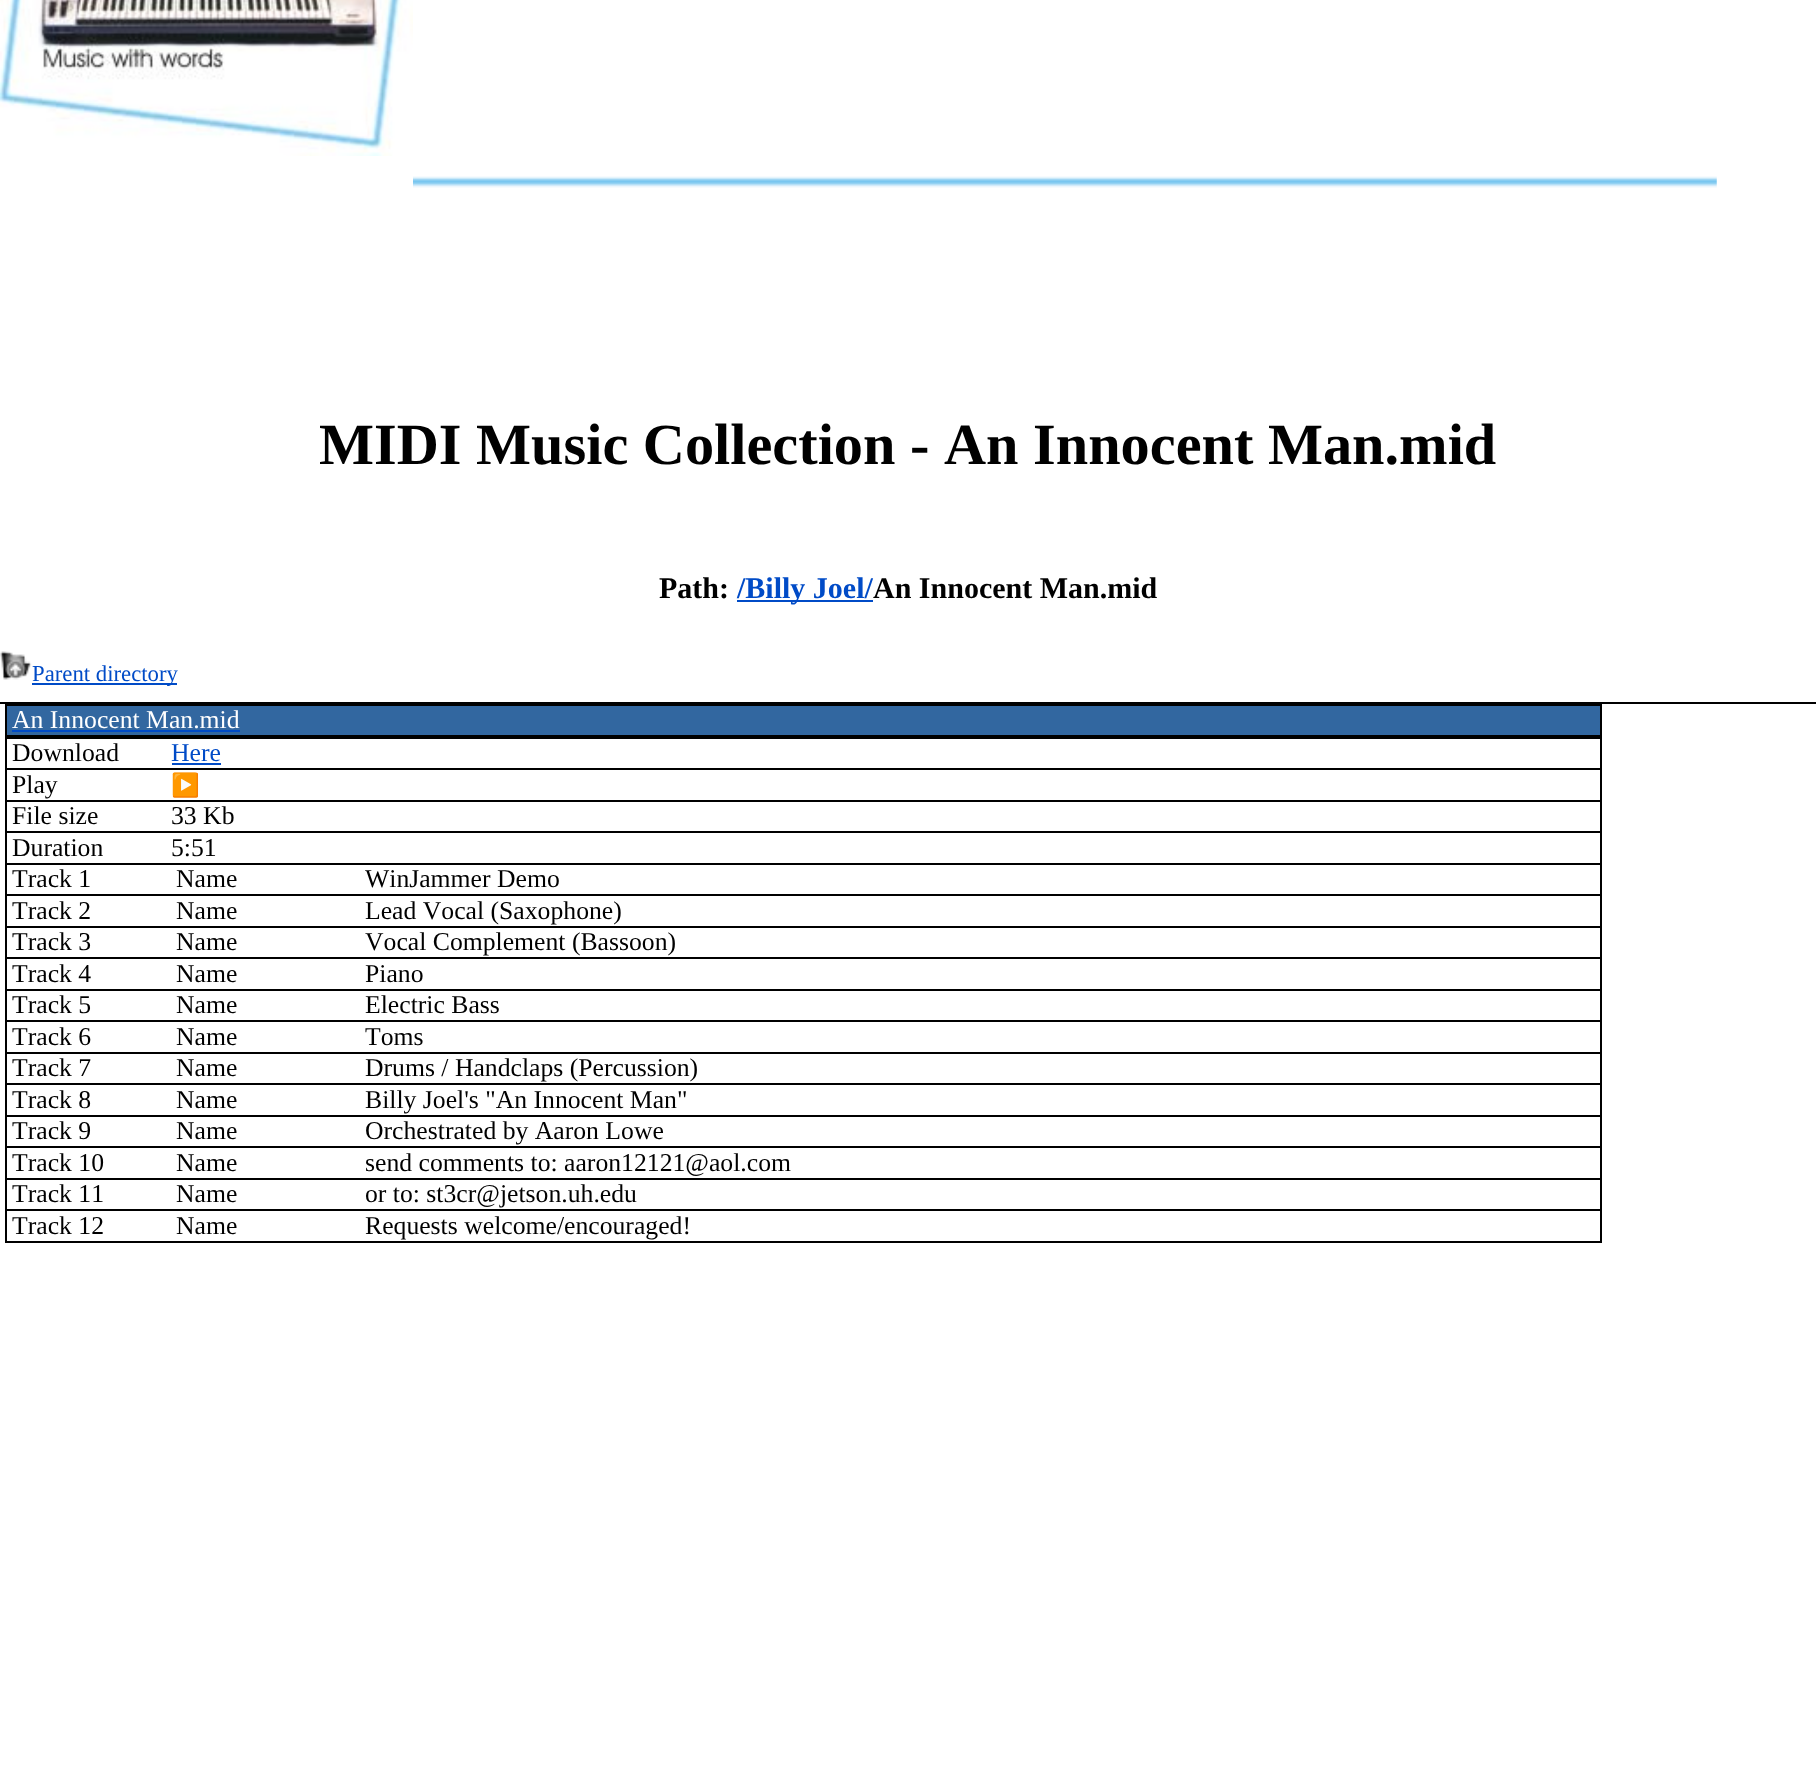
async function draw(canvas) {
	canvas.width = 1816;
	canvas.height = 1785;
	const c = canvas.getContext('2d');
	c.miterLimit = 4;
	c.fontKerning = 'none';
	async function loadImage(src) {
		const img = new Image();
		img.src = src;
		await img.decode();
		return img;
	}

	c.fillStyle = '#fff';
	c.fillRect(0, 0, 1816, 1785);
	c.drawImage(await loadImage('img1.png'), 0, 0, 413, 156);
	c.drawImage(await loadImage('img2.png'), 413, 176, 1304, 12);
	c.font = 'bold 58.3px Liberation Serif';
	c.fillStyle = '#000';
	c.fillText('MIDI Music Collection - An Innocent Man.mid', 319, 464);
	c.font = 'bold 30px Liberation Serif';
	c.fillText('Path:', 659, 598);
	c.fillStyle = '#004bc7';
	c.fillRect(737, 600, 136, 2);
	c.fillText('/Billy Joel/', 737, 598);
	c.fillStyle = '#000';
	c.fillText('An Innocent Man.mid', 873, 598);
	c.drawImage(await loadImage('img3.png'), 0, 651, 32, 29);
	c.fillStyle = '#004bc7';
	c.fillRect(32, 683, 145, 2);
	c.font = '22.75px Liberation Serif';
	c.fillText('Parent directory', 32, 681);
	for (const [x, y, w, h, color] of [
		[0, 702, 1816, 2, '#000'],
		[5, 704, 1596, 2, '#000'],
		[1600, 704, 2, 539, '#000'],
		[5, 1241, 1596, 2, '#000'],
		[5, 704, 2, 539, '#000'],
		[7, 706, 1593, 29, '#3267a0'],
	]) {
		c.fillStyle = color;
		c.fillRect(x, y, w, h);
	}
	c.font = '25.7px Liberation Serif';
	c.fillStyle = '#fff';
	c.fillText('An Innocent Man.mid', 12, 728);
	c.fillStyle = '#004bc7';
	c.fillRect(12, 730, 228, 2);
	c.fillStyle = '#000';
	c.fillRect(5, 735, 1596, 2);
	c.fillText('Download', 12, 761);
	c.fillRect(5, 737, 1596, 2);
	c.fillStyle = '#004bc7';
	c.fillText('Here', 171, 761);
	c.fillRect(172, 763, 49, 2);
	c.fillStyle = '#000';
	c.fillText('Play', 12, 793);
	c.fillRect(5, 768, 1596, 2);
	c.font = '23px Noto Color Emoji';
	c.fillText('▶️', 171, 793);
	c.font = '25.7px Liberation Serif';
	c.fillText('File size', 12, 824);
	c.fillRect(5, 800, 1596, 2);
	c.fillText('33 Kb', 171, 824);
	c.fillText('Duration', 12, 856);
	c.fillRect(5, 831, 1596, 2);
	c.fillText('5:51', 171, 856);
	c.fillText('Track 1', 12, 887);
	c.fillRect(5, 863, 1596, 2);
	for (const [text, x, y] of [
		['Name', 176, 887],
		['WinJammer Demo', 365, 887],
		['Track 2', 12, 919],
	]) {
		c.fillText(text, x, y);
	}
	c.fillRect(5, 894, 1596, 2);
	for (const [text, x, y] of [
		['Name', 176, 919],
		['Lead Vocal (Saxophone)', 365, 919],
		['Track 3', 12, 950],
	]) {
		c.fillText(text, x, y);
	}
	c.fillRect(5, 926, 1596, 2);
	for (const [text, x, y] of [
		['Name', 176, 950],
		['Vocal Complement (Bassoon)', 365, 950],
		['Track 4', 12, 982],
	]) {
		c.fillText(text, x, y);
	}
	c.fillRect(5, 957, 1596, 2);
	for (const [text, x, y] of [
		['Name', 176, 982],
		['Piano', 365, 982],
		['Track 5', 12, 1013],
	]) {
		c.fillText(text, x, y);
	}
	c.fillRect(5, 989, 1596, 2);
	for (const [text, x, y] of [
		['Name', 176, 1013],
		['Electric Bass', 365, 1013],
		['Track 6', 12, 1045],
	]) {
		c.fillText(text, x, y);
	}
	c.fillRect(5, 1020, 1596, 2);
	for (const [text, x, y] of [
		['Name', 176, 1045],
		['Toms', 365, 1045],
		['Track 7', 12, 1076],
	]) {
		c.fillText(text, x, y);
	}
	c.fillRect(5, 1052, 1596, 2);
	for (const [text, x, y] of [
		['Name', 176, 1076],
		['Drums / Handclaps (Percussion)', 365, 1076],
		['Track 8', 12, 1108],
	]) {
		c.fillText(text, x, y);
	}
	c.fillRect(5, 1083, 1596, 2);
	for (const [text, x, y] of [
		['Name', 176, 1108],
		['Billy Joel\'s "An Innocent Man"', 365, 1108],
		['Track 9', 12, 1139],
	]) {
		c.fillText(text, x, y);
	}
	c.fillRect(5, 1115, 1596, 2);
	for (const [text, x, y] of [
		['Name', 176, 1139],
		['Orchestrated by Aaron Lowe', 365, 1139],
		['Track 10', 12, 1171],
	]) {
		c.fillText(text, x, y);
	}
	c.fillRect(5, 1146, 1596, 2);
	for (const [text, x, y] of [
		['Name', 176, 1171],
		['send comments to: aaron12121@aol.com', 365, 1171],
		['Track 11', 12, 1202],
	]) {
		c.fillText(text, x, y);
	}
	c.fillRect(5, 1178, 1596, 2);
	for (const [text, x, y] of [
		['Name', 176, 1202],
		['or to: st3cr@jetson.uh.edu', 365, 1202],
		['Track 12', 12, 1234],
	]) {
		c.fillText(text, x, y);
	}
	c.fillRect(5, 1209, 1596, 2);
	c.fillText('Name', 176, 1234);
	c.fillText('Requests welcome/encouraged!', 365, 1234);
}

draw(document.querySelector('canvas'));
